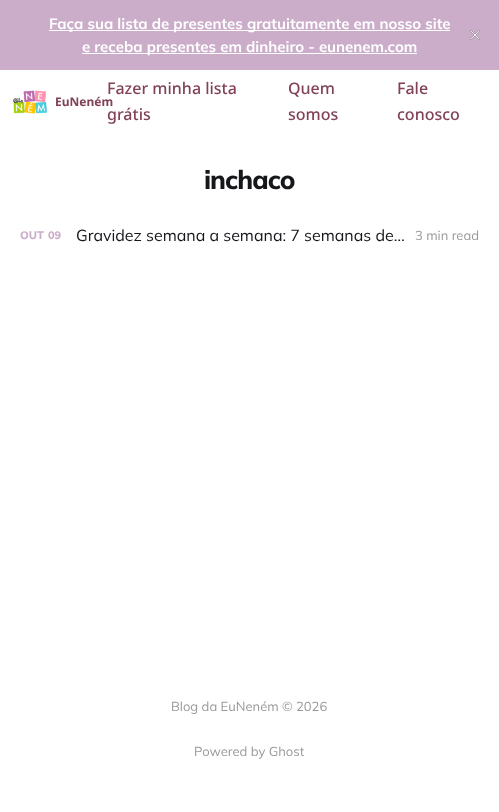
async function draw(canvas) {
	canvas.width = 499;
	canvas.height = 812;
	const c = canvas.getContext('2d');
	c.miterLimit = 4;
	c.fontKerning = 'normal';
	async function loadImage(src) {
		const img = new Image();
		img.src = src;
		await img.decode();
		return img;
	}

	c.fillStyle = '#fff';
	c.fillRect(0, 0, 499, 812);
	c.fillStyle = '#cbadca';
	c.fillRect(0, 0, 499, 70);
	c.fillStyle = '#fff';
	c.fillRect(49, 30, 401, 1);
	c.font = '200 15px "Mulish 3"';
	c.fillText('Faça sua lista de presentes gratuitamente em nosso site', 49, 29);
	c.fillRect(82, 53, 335, 1);
	c.fillText('e receba presentes em dinheiro - eunenem.com', 82, 52);
	c.drawImage(await loadImage('img1.png'), 469, 30, 12, 10);
	c.drawImage(await loadImage('img2.png'), 13, 90, 34, 24);
	c.font = 'bold 12px Noto Sans';
	c.fillStyle = '#814256';
	c.fillText('EuNeném', 55, 106);
	c.font = '500 16px Noto Sans';
	for (const [text, x, y] of [
		['Fazer minha lista', 107, 94],
		['grátis', 107, 120],
		['Quem', 288, 94],
		['somos', 288, 120],
		['Fale', 397, 94],
		['conosco', 397, 120],
	]) {
		c.fillText(text, x, y);
	}
	c.letterSpacing = '-1px';
	c.font = '200 26px Mulish';
	c.fillStyle = '#15171a';
	c.fillText('inchaco', 204, 189);
	c.letterSpacing = '0px';
	c.font = '200 11px Mulish';
	c.fillStyle = '#cbadca';
	c.fillText('OUT', 20, 239);
	c.fillText('09', 48, 239);
	c.font = '200 16px "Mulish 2"';
	c.fillStyle = '#15171a';
	c.fillText('Gravidez semana a semana: 7 semanas de…', 76, 241);
	c.font = '200 13px "Mulish 2"';
	c.fillStyle = '#999';
	for (const [text, x, y] of [
		['3 min read', 415, 240],
		['Blog da EuNeném © 2026', 171, 711],
		['Powered by Ghost', 194, 756],
	]) {
		c.fillText(text, x, y);
	}
}

draw(document.querySelector('canvas'));
